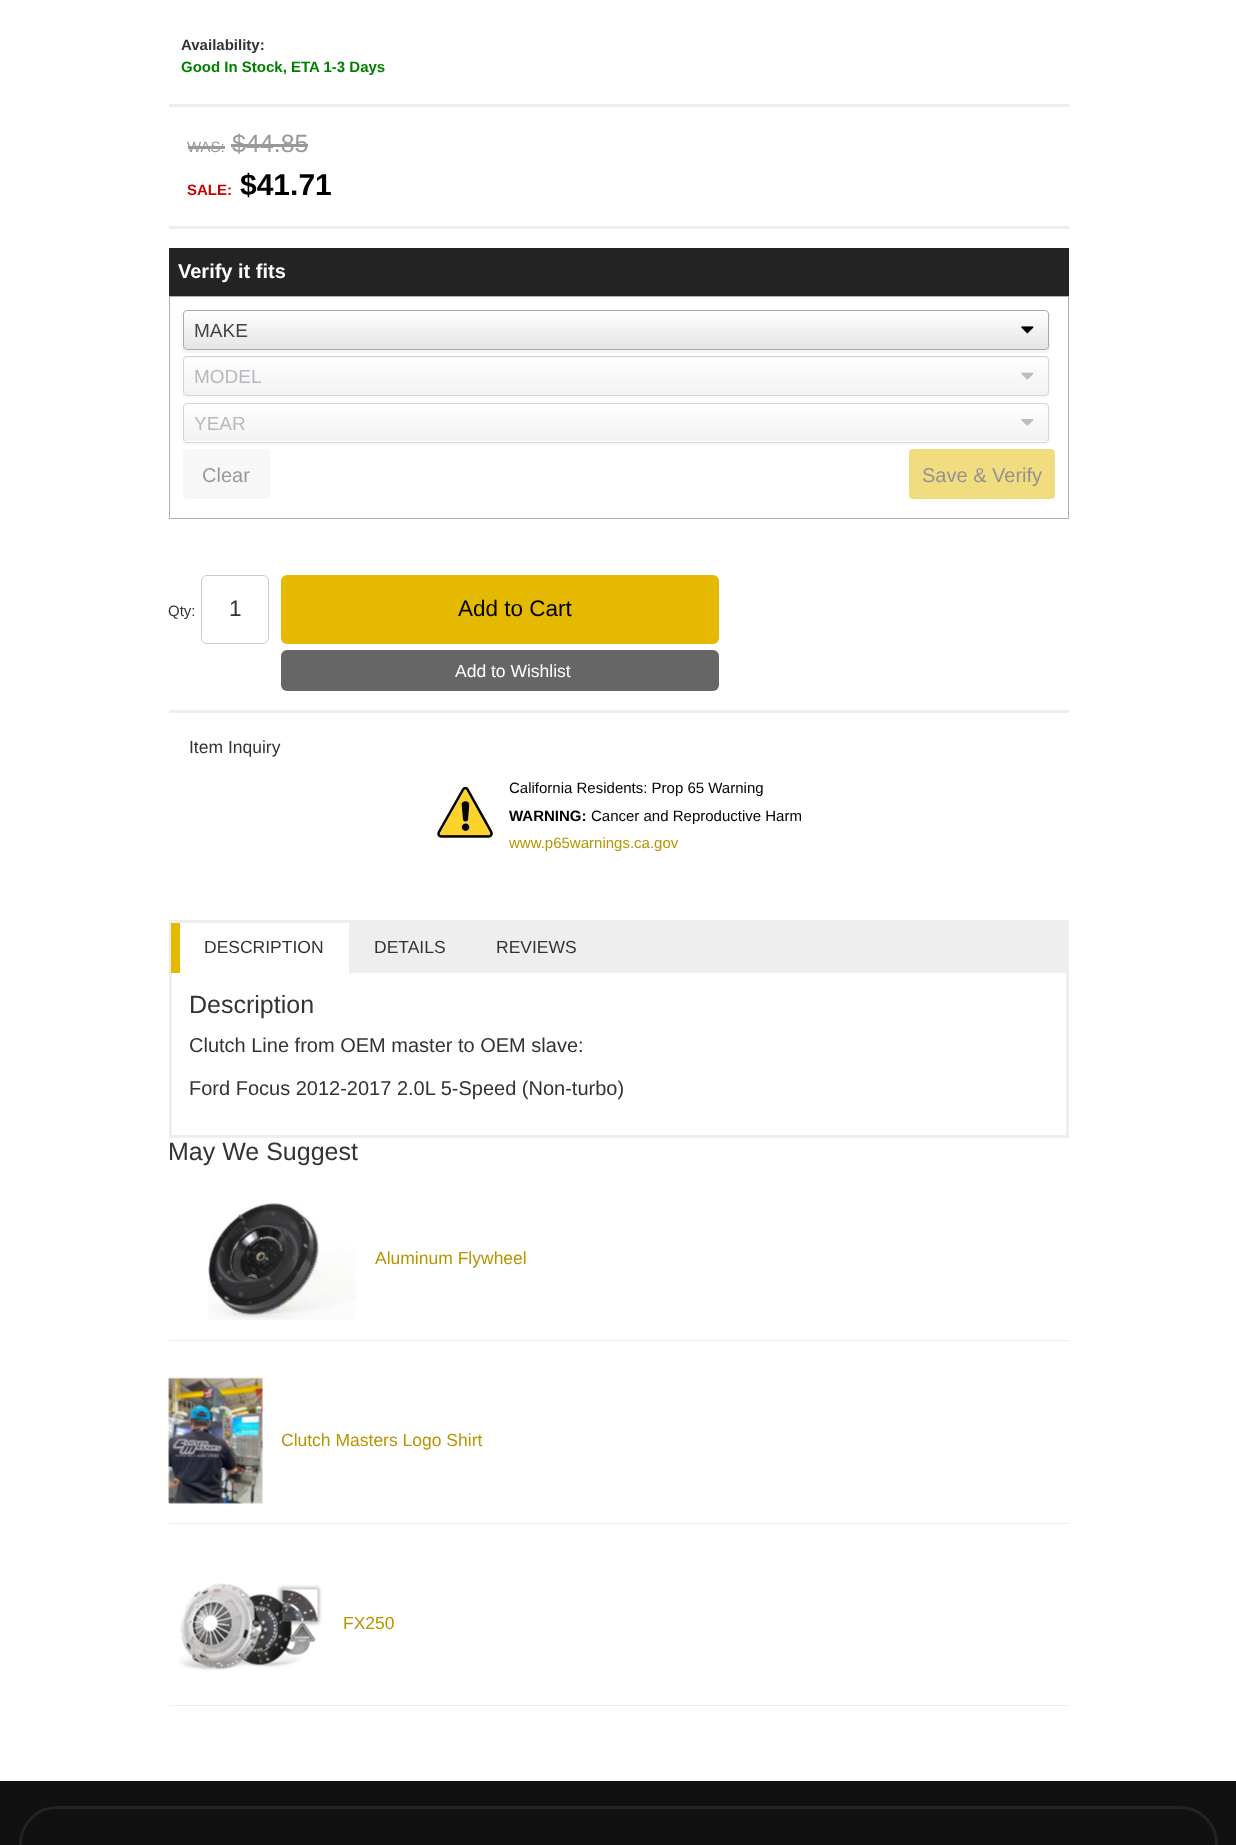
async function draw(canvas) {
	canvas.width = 1236;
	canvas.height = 1845;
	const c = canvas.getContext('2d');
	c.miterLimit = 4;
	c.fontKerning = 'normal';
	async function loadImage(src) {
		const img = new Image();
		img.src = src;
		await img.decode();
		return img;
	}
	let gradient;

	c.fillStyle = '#fff';
	c.fillRect(0, 0, 1236, 1845);
	c.font = 'bold 15px Liberation Sans';
	c.fillStyle = '#333';
	c.fillText('Availability:', 181, 50);
	c.fillStyle = '#008000';
	c.fillText('Good In Stock, ETA 1-3 Days', 181, 72);
	c.fillStyle = '#eee';
	c.fillRect(169, 104, 900, 3);
	c.fillRect(169, 226, 900, 3);
	c.font = '15px Liberation Sans';
	c.fillStyle = '#999';
	c.fillText('WAS:', 187, 152);
	c.fillRect(188, 146, 37, 3);
	c.font = '25px Liberation Sans';
	c.fillText('$44.85', 232, 152);
	c.fillRect(231, 144, 77, 3);
	c.font = 'bold 15px Liberation Sans';
	c.fillStyle = '#c00';
	c.fillText('SALE:', 187, 195);
	c.font = 'bold 30px Liberation Sans';
	c.fillStyle = '#000';
	c.fillText('$41.71', 240, 195);
	c.fillStyle = '#242424';
	c.fillRect(169, 248, 900, 48);
	c.font = 'bold 20px Liberation Sans';
	c.fillStyle = '#fff';
	c.fillText('Verify it fits', 178, 278);
	c.strokeStyle = '#afafaf';
	c.strokeRect(169.5, 296.5, 899, 222);
	c.fillStyle = '#f5f5f5';
	c.beginPath();
	c.moveTo(186, 310);
	c.bezierCurveTo(183, 310, 181, 312, 181, 315);
	c.lineTo(181, 348);
	c.bezierCurveTo(181, 351, 183, 353, 186, 353);
	c.lineTo(1045, 353);
	c.bezierCurveTo(1048, 353, 1050, 351, 1050, 348);
	c.lineTo(1050, 315);
	c.bezierCurveTo(1050, 312, 1048, 310, 1045, 310);
	c.bezierCurveTo(1047, 310, 1049, 312, 1049, 314);
	c.lineTo(1049, 346);
	c.bezierCurveTo(1049, 348, 1047, 350, 1045, 350);
	c.lineTo(186, 350);
	c.bezierCurveTo(184, 350, 182, 348, 182, 346);
	c.lineTo(182, 314);
	c.bezierCurveTo(182, 312, 184, 310, 186, 310);
	c.closePath();
	c.fill();
	c.save();
	c.beginPath();
	c.roundRect(183, 310, 866, 40, 4);
	c.clip();
	gradient = c.createLinearGradient(616, 311, 616, 349);
	gradient.addColorStop(0, '#fff');
	gradient.addColorStop(1, '#e5e5e5');
	c.fillStyle = gradient;
	c.fillRect(183, 311, 866, 38);
	c.restore();
	c.drawImage(await loadImage('img1.png'), 1021, 326, 13, 8);
	c.beginPath();
	c.roundRect(183.5, 310.5, 865, 39, 3.5);
	c.strokeStyle = '#aaa';
	c.stroke();
	c.font = '19px Liberation Sans';
	c.fillStyle = '#444';
	c.fillText('MAKE', 194, 337);
	c.fillStyle = '#fafafa';
	c.beginPath();
	c.moveTo(186, 356);
	c.bezierCurveTo(183, 356, 181, 358, 181, 361);
	c.lineTo(181, 394);
	c.bezierCurveTo(181, 397, 183, 399, 186, 399);
	c.lineTo(1045, 399);
	c.bezierCurveTo(1048, 399, 1050, 397, 1050, 394);
	c.lineTo(1050, 361);
	c.bezierCurveTo(1050, 358, 1048, 356, 1045, 356);
	c.closePath();
	c.moveTo(186, 356);
	c.bezierCurveTo(184, 356, 182, 358, 182, 360);
	c.lineTo(182, 392);
	c.bezierCurveTo(182, 395, 184, 396, 186, 396);
	c.lineTo(1045, 396);
	c.bezierCurveTo(1047, 396, 1049, 395, 1049, 392);
	c.lineTo(1049, 360);
	c.bezierCurveTo(1049, 358, 1047, 356, 1045, 356);
	c.closePath();
	c.fill('evenodd');
	c.save();
	c.beginPath();
	c.roundRect(183, 356, 866, 40, 4);
	c.clip();
	gradient = c.createLinearGradient(616, 320, 616, 358);
	gradient.addColorStop(0, '#fff');
	gradient.addColorStop(1, '#f2f2f2');
	c.fillStyle = gradient;
	c.fillRect(183, 356, 866, 2);
	gradient = c.createLinearGradient(616, 357, 616, 395);
	gradient.addColorStop(0, '#fff');
	gradient.addColorStop(1, '#f2f2f2');
	c.fillStyle = gradient;
	c.fillRect(183, 358, 866, 37);
	c.restore();
	c.drawImage(await loadImage('img2.png'), 1021, 372, 13, 8);
	c.beginPath();
	c.roundRect(183.5, 356.5, 865, 39, 3.5);
	c.strokeStyle = '#d5d5d5';
	c.stroke();
	c.fillStyle = '#b6babe';
	c.fillText('MODEL', 194, 383);
	c.fillStyle = '#fafafa';
	c.beginPath();
	c.moveTo(184, 404);
	c.bezierCurveTo(182, 404, 181, 406, 181, 408);
	c.lineTo(181, 440);
	c.bezierCurveTo(181, 443, 183, 445, 186, 445);
	c.lineTo(1045, 445);
	c.bezierCurveTo(1048, 445, 1050, 443, 1050, 440);
	c.lineTo(1050, 408);
	c.bezierCurveTo(1050, 406, 1049, 405, 1048, 404);
	c.lineTo(1049, 406);
	c.lineTo(1049, 439);
	c.bezierCurveTo(1049, 441, 1047, 442, 1045, 442);
	c.lineTo(186, 442);
	c.bezierCurveTo(184, 442, 182, 441, 182, 439);
	c.lineTo(182, 406);
	c.bezierCurveTo(182, 405, 183, 404, 184, 404);
	c.closePath();
	c.fill();
	c.fillStyle = '#fff';
	c.beginPath();
	c.roundRect(183, 403, 866, 40, 4);
	c.fill();
	c.save();
	c.beginPath();
	c.roundRect(183, 403, 866, 40, 4);
	c.clip();
	gradient = c.createLinearGradient(616, 404, 616, 441);
	gradient.addColorStop(0, '#fff');
	gradient.addColorStop(1, '#f2f2f2');
	c.fillStyle = gradient;
	c.fillRect(183, 404, 866, 37);
	c.restore();
	c.drawImage(await loadImage('img3.png'), 1021, 419, 13, 7);
	c.beginPath();
	c.roundRect(183.5, 403.5, 865, 39, 3.5);
	c.stroke();
	c.fillStyle = '#b6babe';
	c.fillText('YEAR', 194, 430);
	c.fillStyle = '#f7f7f7';
	c.beginPath();
	c.roundRect(183, 449, 87, 50, 4);
	c.fill();
	c.font = '20px Liberation Sans';
	c.fillStyle = '#999';
	c.fillText('Clear', 202, 482);
	c.fillStyle = '#f2dc80';
	c.beginPath();
	c.roundRect(909, 449, 146, 50, 4);
	c.fill();
	c.fillStyle = '#929292';
	c.fillText('Save & Verify', 922, 482);
	c.fillStyle = '#eee';
	c.fillRect(169, 710, 900, 3);
	c.font = '15px Liberation Sans';
	c.fillStyle = '#333';
	c.fillText('Qty:', 168, 616);
	c.beginPath();
	c.roundRect(201.5, 575.5, 67, 68, 5.5);
	c.strokeStyle = '#ccc';
	c.stroke();
	c.font = '22.5px Liberation Sans';
	c.fillText('1', 229, 616);
	c.fillStyle = '#e5b900';
	c.beginPath();
	c.roundRect(281, 575, 438, 69, 6);
	c.fill();
	c.fillStyle = '#000';
	c.fillText('Add to Cart', 458, 616);
	c.fillStyle = '#666';
	c.beginPath();
	c.roundRect(281, 650, 438, 41, 6);
	c.fill();
	c.font = '17.5px Liberation Sans';
	c.fillStyle = '#fff';
	c.fillText('Add to Wishlist', 455, 677);
	c.fillStyle = '#333';
	c.fillText('Item Inquiry', 189, 753);
	c.drawImage(await loadImage('img4.png'), 437, 786, 56, 52);
	c.font = '15px Liberation Sans';
	c.fillStyle = '#000';
	c.fillText('California Residents: Prop 65 Warning', 509, 793);
	c.font = 'bold 15px Liberation Sans';
	c.fillText('WARNING:', 509, 821);
	c.font = '15px Liberation Sans';
	c.fillText('Cancer and Reproductive Harm', 591, 821);
	c.fillStyle = '#b79400';
	c.fillText('www.p65warnings.ca.gov', 509, 848);
	for (const [x, y, w, h, color] of [
		[169, 920, 900, 53, '#eee'],
		[171, 923, 9, 50, '#e5b900'],
		[180, 923, 169, 50, '#fff'],
	]) {
		c.fillStyle = color;
		c.fillRect(x, y, w, h);
	}
	c.font = '17.5px Liberation Sans';
	c.fillStyle = '#333';
	for (const [text, x, y] of [
		['DESCRIPTION', 204, 953],
		['DETAILS', 374, 953],
		['REVIEWS', 496, 953],
	]) {
		c.fillText(text, x, y);
	}
	for (const [x, y, w, h, color] of [
		[1066, 973, 3, 165, '#eee'],
		[169, 1135, 900, 3, '#eee'],
		[169, 973, 3, 165, '#eee'],
	]) {
		c.fillStyle = color;
		c.fillRect(x, y, w, h);
	}
	c.font = '25px Liberation Sans';
	c.fillStyle = '#333';
	c.fillText('Description', 189, 1013);
	c.font = '20px Liberation Sans';
	c.fillText('Clutch Line from OEM master to OEM slave:', 189, 1052);
	c.fillText('Ford Focus 2012-2017 2.0L 5-Speed (Non-turbo)', 189, 1095);
	c.font = '25px Liberation Sans';
	c.fillText('May We Suggest', 168, 1160);
	c.fillStyle = '#eee';
	c.fillRect(169, 1340, 900, 1);
	c.drawImage(await loadImage('img5.png'), 208, 1202, 148, 118);
	c.font = '17.5px Liberation Sans';
	c.fillStyle = '#b79400';
	c.fillText('Aluminum Flywheel', 375, 1264);
	c.fillStyle = '#eee';
	c.fillRect(169, 1523, 900, 1);
	c.drawImage(await loadImage('img6.png'), 168, 1377, 95, 127);
	c.fillStyle = '#b79400';
	c.fillText('Clutch Masters Logo Shirt', 281, 1446);
	c.fillStyle = '#eee';
	c.fillRect(169, 1705, 900, 1);
	c.drawImage(await loadImage('img7.png'), 179, 1583, 143, 88);
	c.fillStyle = '#b79400';
	c.fillText('FX250', 343, 1629);
	c.fillStyle = '#111';
	c.fillRect(0, 1781, 1236, 64);
	c.beginPath();
	c.roundRect(20.5, 1807.5, 1196, 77, 36.5);
	c.strokeStyle = '#232323';
	c.lineWidth = 3;
	c.stroke();
}

draw(document.querySelector('canvas'));
